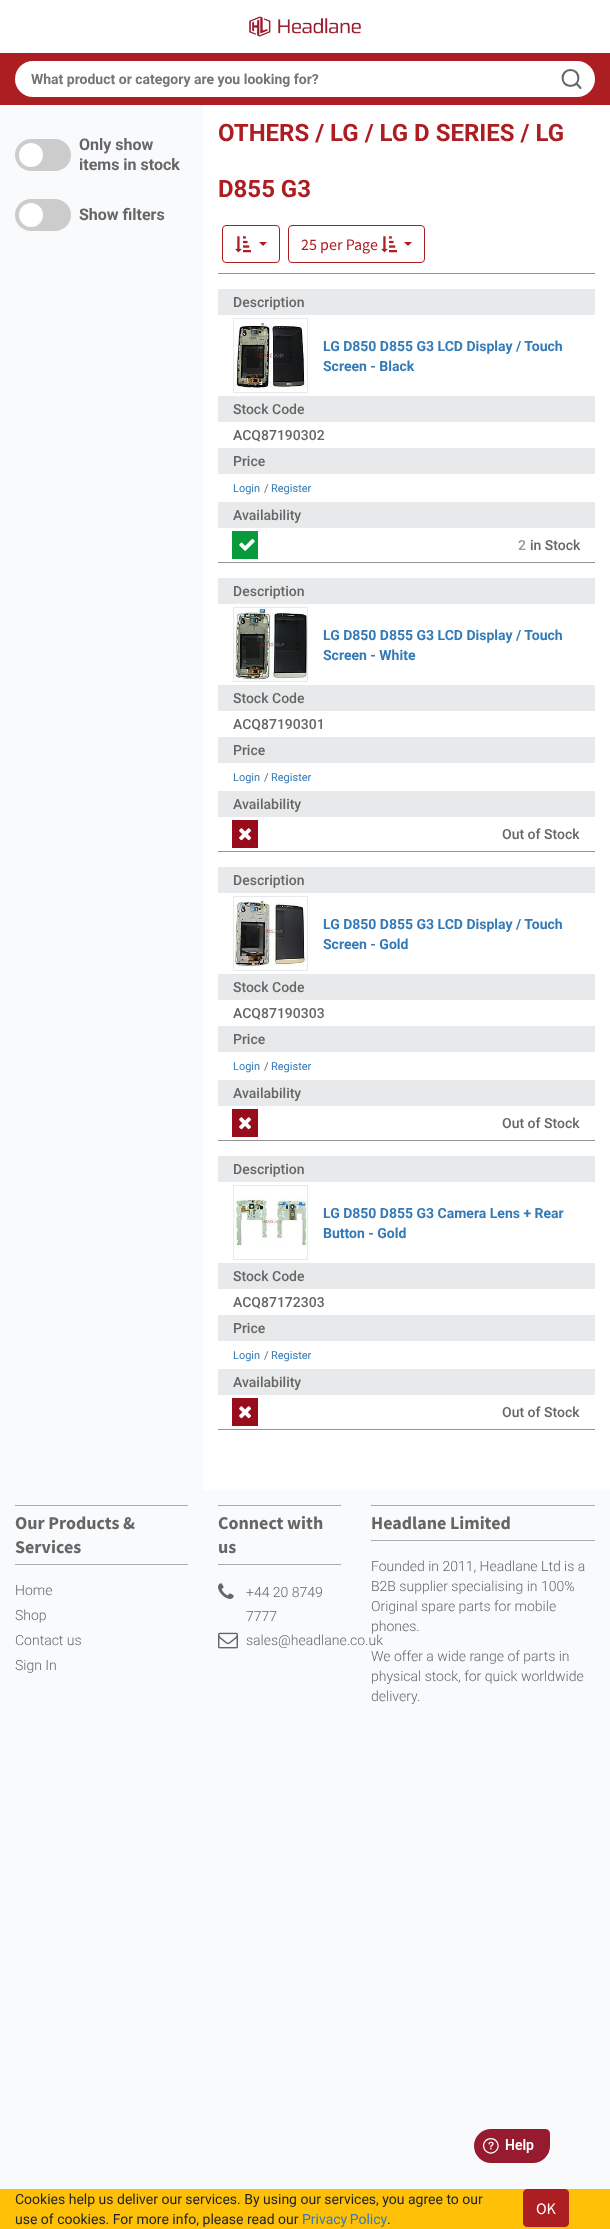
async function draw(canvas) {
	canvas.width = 610;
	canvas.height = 2229;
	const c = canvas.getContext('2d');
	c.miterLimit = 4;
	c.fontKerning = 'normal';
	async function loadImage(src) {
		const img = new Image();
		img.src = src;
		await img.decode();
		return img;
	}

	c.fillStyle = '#fff';
	c.fillRect(0, 0, 610, 2229);
	c.drawImage(await loadImage('img1.png'), 249, 16, 112, 21);
	c.fillStyle = '#ad1e23';
	c.fillRect(0, 53, 610, 52);
	c.fillStyle = '#fff';
	c.beginPath();
	c.roundRect(15, 61, 580, 36, 18);
	c.fill();
	c.font = 'bold 14px Roboto';
	c.fillStyle = '#757575';
	c.fillText('What product or category are you looking for?', 31, 84);
	c.beginPath();
	c.moveTo(570.5, 86);
	c.bezierCurveTo(581, 86, 581, 70, 570.5, 70);
	c.bezierCurveTo(560, 70, 560, 86, 570.5, 86);
	c.closePath();
	c.moveTo(580.5, 88);
	c.lineTo(576.5, 83.5);
	c.strokeStyle = '#666';
	c.lineWidth = 2;
	c.lineCap = 'round';
	c.lineJoin = 'round';
	c.stroke();
	c.fillStyle = '#f9fafc';
	c.fillRect(0, 105, 203, 1385);
	c.fillStyle = '#ccc';
	c.beginPath();
	c.roundRect(15, 139, 56, 32, 16);
	c.fill();
	c.fillStyle = '#fff';
	c.beginPath();
	c.arc(31, 155, 12, 0, 2 * Math.PI);
	c.fill();
	c.font = 'bold 16px Roboto';
	c.fillStyle = '#666';
	c.fillText('Only show', 79, 150);
	c.fillText('items in stock', 79, 170);
	c.fillStyle = '#ccc';
	c.beginPath();
	c.roundRect(15, 199, 56, 32, 16);
	c.fill();
	c.fillStyle = '#fff';
	c.beginPath();
	c.arc(31, 215, 12, 0, 2 * Math.PI);
	c.fill();
	c.fillStyle = '#666';
	c.fillText('Show filters', 79, 220);
	c.fillStyle = '#929393';
	c.fillRect(218, 273, 377, 1);
	c.font = 'bold 24px Roboto';
	c.fillStyle = '#ad1e23';
	c.fillText('OTHERS / LG / LG D SERIES / LG', 218, 141);
	c.fillText('D855 G3', 218, 197);
	c.beginPath();
	c.roundRect(222.5, 225.5, 57, 37, 3.5);
	c.strokeStyle = '#ad1e23';
	c.lineWidth = 1;
	c.lineJoin = 'miter';
	c.stroke();
	c.drawImage(await loadImage('img2.png'), 235, 236, 16, 17);
	c.beginPath();
	c.moveTo(259, 242);
	c.lineTo(267, 242);
	c.lineTo(263, 246);
	c.closePath();
	c.fill();
	c.beginPath();
	c.roundRect(288.5, 225.5, 136, 37, 3.5);
	c.stroke();
	c.font = '16px Source Sans Pro';
	c.fillText('25 per Page', 301, 250);
	c.drawImage(await loadImage('img2.png'), 381, 236, 16, 17);
	c.beginPath();
	c.moveTo(404, 242);
	c.lineTo(412, 242);
	c.lineTo(408, 246);
	c.closePath();
	c.fill();
	c.fillStyle = '#929393';
	c.fillRect(218, 562, 377, 1);
	c.fillStyle = '#e8e9ea';
	c.fillRect(218, 289, 377, 26);
	c.font = '500 14px Roboto';
	c.fillStyle = '#666';
	c.fillText('Description', 233, 307);
	c.strokeStyle = '#e8e9ea';
	c.strokeRect(233.5, 318.5, 74, 74);
	c.drawImage(await loadImage('img3.png'), 234, 319, 73, 73);
	c.font = 'bold 14px Roboto';
	c.fillStyle = '#337ab7';
	c.fillText('LG D850 D855 G3 LCD Display / Touch', 323, 351);
	c.fillText('Screen - Black', 323, 371);
	c.fillStyle = '#e8e9ea';
	c.fillRect(218, 396, 377, 26);
	c.font = '500 14px Roboto';
	c.fillStyle = '#666';
	c.fillText('Stock Code', 233, 414);
	c.fillText('ACQ87190302', 233, 440);
	c.fillStyle = '#e8e9ea';
	c.fillRect(218, 448, 377, 26);
	c.fillStyle = '#666';
	c.fillText('Price', 233, 466);
	c.font = '11px Roboto';
	c.fillStyle = '#337ab7';
	c.fillText('Login', 233, 492);
	c.fillStyle = '#666';
	c.fillText('/', 264, 492);
	c.fillStyle = '#337ab7';
	c.fillText('Register', 271, 492);
	c.fillStyle = '#e8e9ea';
	c.fillRect(218, 502, 377, 26);
	c.font = '500 14px Roboto';
	c.fillStyle = '#666';
	c.fillText('Availability', 233, 520);
	c.fillStyle = '#099a3c';
	c.fillRect(232, 531, 26, 28);
	c.drawImage(await loadImage('img4.png'), 239, 538, 16, 13);
	c.fillStyle = '#999';
	c.fillText('2', 518, 550);
	c.fillStyle = '#666';
	c.fillText('in Stock', 530, 550);
	c.fillStyle = '#929393';
	c.fillRect(218, 851, 377, 1);
	c.fillStyle = '#e8e9ea';
	c.fillRect(218, 578, 377, 26);
	c.fillStyle = '#666';
	c.fillText('Description', 233, 596);
	c.strokeRect(233.5, 607.5, 74, 74);
	c.drawImage(await loadImage('img5.png'), 234, 608, 73, 73);
	c.font = 'bold 14px Roboto';
	c.fillStyle = '#337ab7';
	c.fillText('LG D850 D855 G3 LCD Display / Touch', 323, 640);
	c.fillText('Screen - White', 323, 660);
	c.fillStyle = '#e8e9ea';
	c.fillRect(218, 685, 377, 26);
	c.font = '500 14px Roboto';
	c.fillStyle = '#666';
	c.fillText('Stock Code', 233, 703);
	c.fillText('ACQ87190301', 233, 729);
	c.fillStyle = '#e8e9ea';
	c.fillRect(218, 737, 377, 26);
	c.fillStyle = '#666';
	c.fillText('Price', 233, 755);
	c.font = '11px Roboto';
	c.fillStyle = '#337ab7';
	c.fillText('Login', 233, 781);
	c.fillStyle = '#666';
	c.fillText('/', 264, 781);
	c.fillStyle = '#337ab7';
	c.fillText('Register', 271, 781);
	c.fillStyle = '#e8e9ea';
	c.fillRect(218, 791, 377, 26);
	c.font = '500 14px Roboto';
	c.fillStyle = '#666';
	c.fillText('Availability', 233, 809);
	c.fillStyle = '#980c1b';
	c.fillRect(232, 820, 26, 28);
	c.drawImage(await loadImage('img6.png'), 239, 828, 12, 13);
	c.fillStyle = '#666';
	c.fillText('Out of Stock', 502, 839);
	c.fillStyle = '#929393';
	c.fillRect(218, 1140, 377, 1);
	c.fillStyle = '#e8e9ea';
	c.fillRect(218, 867, 377, 26);
	c.fillStyle = '#666';
	c.fillText('Description', 233, 885);
	c.strokeRect(233.5, 896.5, 74, 74);
	c.drawImage(await loadImage('img7.png'), 234, 897, 73, 73);
	c.font = 'bold 14px Roboto';
	c.fillStyle = '#337ab7';
	c.fillText('LG D850 D855 G3 LCD Display / Touch', 323, 929);
	c.fillText('Screen - Gold', 323, 949);
	c.fillStyle = '#e8e9ea';
	c.fillRect(218, 974, 377, 26);
	c.font = '500 14px Roboto';
	c.fillStyle = '#666';
	c.fillText('Stock Code', 233, 992);
	c.fillText('ACQ87190303', 233, 1018);
	c.fillStyle = '#e8e9ea';
	c.fillRect(218, 1026, 377, 26);
	c.fillStyle = '#666';
	c.fillText('Price', 233, 1044);
	c.font = '11px Roboto';
	c.fillStyle = '#337ab7';
	c.fillText('Login', 233, 1070);
	c.fillStyle = '#666';
	c.fillText('/', 264, 1070);
	c.fillStyle = '#337ab7';
	c.fillText('Register', 271, 1070);
	c.fillStyle = '#e8e9ea';
	c.fillRect(218, 1080, 377, 26);
	c.font = '500 14px Roboto';
	c.fillStyle = '#666';
	c.fillText('Availability', 233, 1098);
	c.fillStyle = '#980c1b';
	c.fillRect(232, 1109, 26, 28);
	c.drawImage(await loadImage('img6.png'), 239, 1117, 12, 13);
	c.fillStyle = '#666';
	c.fillText('Out of Stock', 502, 1128);
	c.fillStyle = '#929393';
	c.fillRect(218, 1429, 377, 1);
	c.fillStyle = '#e8e9ea';
	c.fillRect(218, 1156, 377, 26);
	c.fillStyle = '#666';
	c.fillText('Description', 233, 1174);
	c.strokeRect(233.5, 1185.5, 74, 74);
	c.drawImage(await loadImage('img8.png'), 234, 1195, 73, 51);
	c.font = 'bold 14px Roboto';
	c.fillStyle = '#337ab7';
	c.fillText('LG D850 D855 G3 Camera Lens + Rear', 323, 1218);
	c.fillText('Button - Gold', 323, 1238);
	c.fillStyle = '#e8e9ea';
	c.fillRect(218, 1263, 377, 26);
	c.font = '500 14px Roboto';
	c.fillStyle = '#666';
	c.fillText('Stock Code', 233, 1281);
	c.fillText('ACQ87172303', 233, 1307);
	c.fillStyle = '#e8e9ea';
	c.fillRect(218, 1315, 377, 26);
	c.fillStyle = '#666';
	c.fillText('Price', 233, 1333);
	c.font = '11px Roboto';
	c.fillStyle = '#337ab7';
	c.fillText('Login', 233, 1359);
	c.fillStyle = '#666';
	c.fillText('/', 264, 1359);
	c.fillStyle = '#337ab7';
	c.fillText('Register', 271, 1359);
	c.fillStyle = '#e8e9ea';
	c.fillRect(218, 1369, 377, 26);
	c.font = '500 14px Roboto';
	c.fillStyle = '#666';
	c.fillText('Availability', 233, 1387);
	c.fillStyle = '#980c1b';
	c.fillRect(232, 1398, 26, 28);
	c.drawImage(await loadImage('img6.png'), 239, 1406, 12, 13);
	c.fillStyle = '#666';
	c.fillText('Out of Stock', 502, 1417);
	for (const [x, y, w, h, color] of [
		[0, 1490, 610, 699, '#f9fafc'],
		[15, 1505, 173, 1, '#a9aaab'],
		[15, 1564, 173, 1, '#a9aaab'],
	]) {
		c.fillStyle = color;
		c.fillRect(x, y, w, h);
	}
	c.font = 'bold 18px Source Sans Pro';
	c.fillStyle = '#666';
	c.fillText('Our Products &', 15, 1529);
	c.fillText('Services', 15, 1553);
	c.font = '300 14px Roboto';
	for (const [text, x, y] of [
		['Home', 15, 1595],
		['Shop', 15, 1620],
		['Contact us', 15, 1645],
		['Sign In', 15, 1670],
	]) {
		c.fillText(text, x, y);
	}
	c.fillStyle = '#a9aaab';
	c.fillRect(218, 1505, 123, 1);
	c.fillRect(218, 1564, 123, 1);
	c.font = 'bold 18px Source Sans Pro';
	c.fillStyle = '#666';
	c.fillText('Connect with', 218, 1529);
	c.fillText('us', 218, 1553);
	c.drawImage(await loadImage('img9.png'), 218, 1583, 16, 16);
	c.font = '300 14px Roboto';
	c.fillText('+44 20 8749', 246, 1597);
	c.fillText('7777', 246, 1621);
	c.drawImage(await loadImage('img10.png'), 218, 1632, 20, 17);
	c.fillText('sales@headlane.co.uk', 246, 1645);
	c.fillStyle = '#a9aaab';
	c.fillRect(371, 1505, 224, 1);
	c.fillRect(371, 1540, 224, 1);
	c.font = 'bold 18px Source Sans Pro';
	c.fillStyle = '#666';
	c.fillText('Headlane Limited', 371, 1529);
	c.font = '300 14px Roboto';
	for (const [text, x, y] of [
		['Founded in 2011, Headlane Ltd is a', 371, 1571],
		['B2B supplier specialising in 100%', 371, 1591],
		['Original spare parts for mobile', 371, 1611],
		['phones.', 371, 1631],
		['We offer a wide range of parts in', 371, 1661],
		['physical stock, for quick worldwide', 371, 1681],
		['delivery.', 371, 1701],
	]) {
		c.fillText(text, x, y);
	}
	c.fillStyle = '#ffc107';
	c.fillRect(0, 2189, 610, 40);
	c.font = '14px Roboto';
	c.fillStyle = '#212529';
	c.fillText('Cookies help us deliver our services. By using our services, you agree to our', 15, 2204);
	c.fillText('use of cookies. For more info, please read our', 15, 2224);
	c.wordSpacing = '-1px';
	c.fillStyle = '#337ab7';
	c.fillText('Privacy Policy', 302, 2224);
	c.wordSpacing = '0px';
	c.fillStyle = '#212529';
	c.fillText('.', 387, 2224);
	c.fillStyle = '#ad1e23';
	c.beginPath();
	c.roundRect(523.5, 2189.5, 45, 37, 3.5);
	c.fill();
	c.strokeStyle = '#ad1e23';
	c.stroke();
	c.font = '16px Source Sans Pro';
	c.fillStyle = '#fff';
	c.fillText('OK', 536, 2214);
	c.drawImage(await loadImage('img11.png'), 474, 2129, 77, 34);
}

draw(document.querySelector('canvas'));
